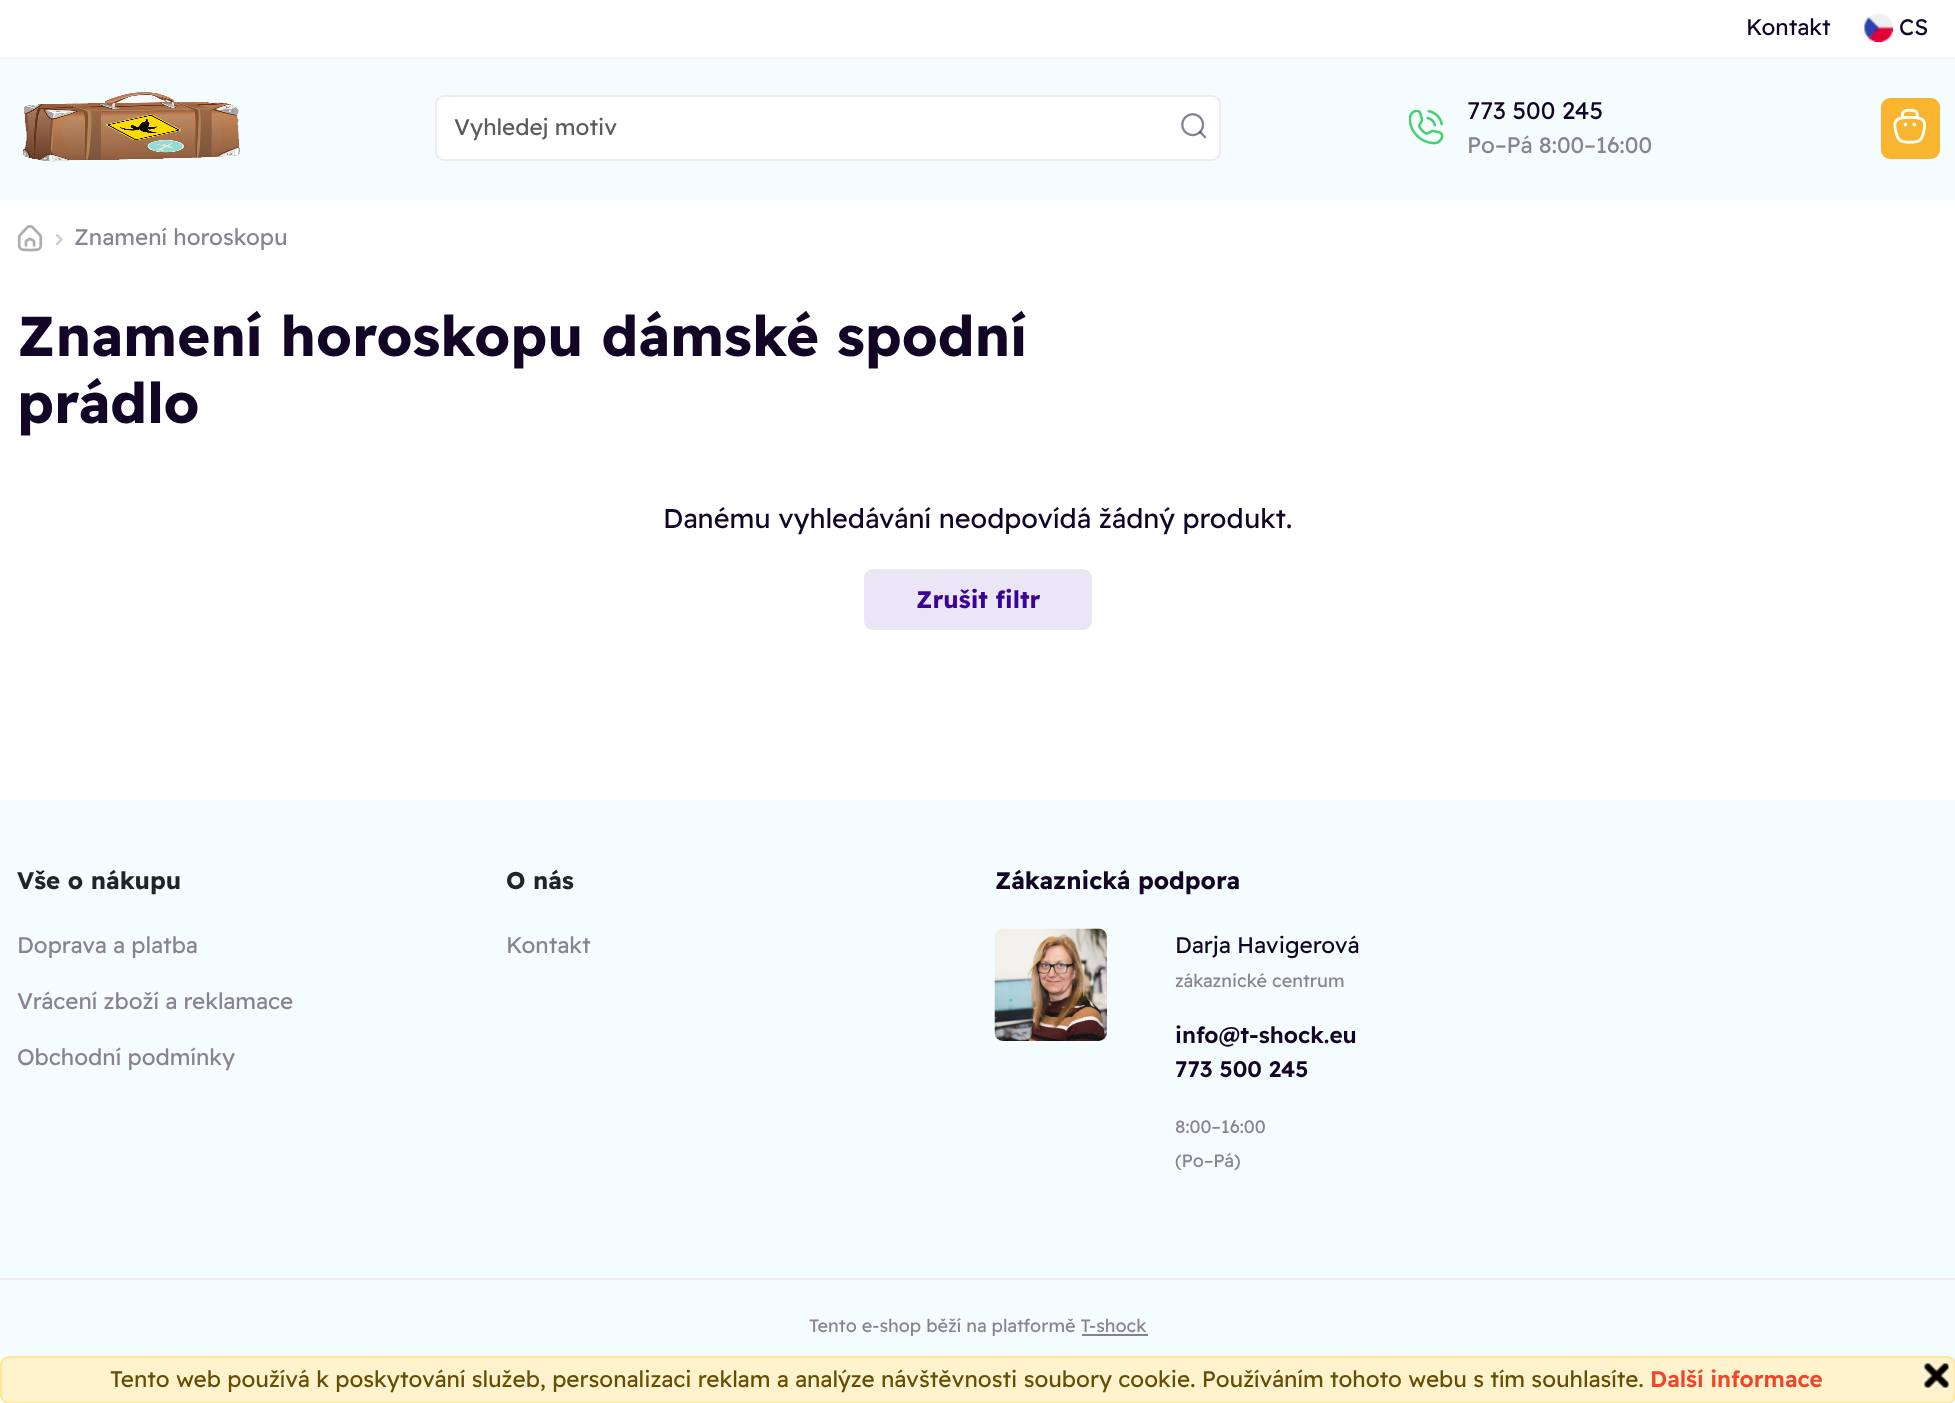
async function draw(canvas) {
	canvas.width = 1955;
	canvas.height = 1403;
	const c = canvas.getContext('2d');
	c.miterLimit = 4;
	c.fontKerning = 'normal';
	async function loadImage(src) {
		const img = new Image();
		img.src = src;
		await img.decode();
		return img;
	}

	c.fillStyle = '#fff';
	c.fillRect(0, 0, 1955, 1403);
	c.font = '22.5px Readex Pro';
	c.fillStyle = '#120526';
	c.fillText('Kontakt', 1746, 35);
	c.drawImage(await loadImage('img1.png'), 1864, 13, 29, 29);
	c.fillText('CS', 1899, 35);
	c.fillStyle = '#f5fcfe';
	c.fillRect(0, 57, 1955, 143);
	c.drawImage(await loadImage('img2.png'), 22, 92, 218, 70);
	c.fillStyle = '#fff';
	c.beginPath();
	c.roundRect(436, 96, 784, 64, 8);
	c.fill();
	c.strokeStyle = '#f0eaf7';
	c.lineWidth = 2;
	c.stroke();
	c.fillStyle = '#595c5f';
	c.fillText('Vyhledej motiv', 454, 135);
	c.drawImage(await loadImage('img3.png'), 1181, 113, 26, 26);
	c.drawImage(await loadImage('img4.png'), 1409, 110, 35, 35);
	c.font = '24px Readex Pro';
	c.fillStyle = '#120526';
	c.fillText('773 500 245', 1467, 119);
	c.font = '22.5px Readex Pro';
	c.fillStyle = '#898293';
	c.fillText('Po–Pá 8:00–16:00', 1467, 153);
	c.fillStyle = '#f7b530';
	c.beginPath();
	c.roundRect(1881, 98, 59, 61, 9);
	c.fill();
	c.drawImage(await loadImage('img5.png'), 1893, 108, 34, 36);
	c.fillStyle = '#f5fcfe';
	c.fillRect(0, 800, 1955, 565);
	c.fillStyle = '#fff3cd';
	c.beginPath();
	c.roundRect(1, 1357, 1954, 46, 8);
	c.fill();
	c.strokeStyle = '#ffe69c';
	c.stroke();
	c.fillStyle = '#664d03';
	c.fillText('Tento web používá k poskytování služeb, personalizaci reklam a analýze návštěvnosti soubory cookie. Používáním tohoto webu s tím souhlasíte.', 110, 1387);
	c.font = '600 22.5px Readex Pro';
	c.fillStyle = '#ed472b';
	c.fillText('Další informace', 1650, 1387);
	c.drawImage(await loadImage('img6.png'), 1924, 1363, 25, 25);
	c.drawImage(await loadImage('img7.png'), 17, 225, 26, 27);
	c.drawImage(await loadImage('img8.png'), 56, 234, 7, 12);
	c.font = '22.5px Readex Pro';
	c.fillStyle = '#898293';
	c.fillText('Znamení horoskopu', 74, 245);
	c.font = 'bold 56.25px Readex Pro';
	c.fillStyle = '#120526';
	c.fillText('Znamení horoskopu dámské spodní', 17, 356);
	c.fillText('prádlo', 17, 423);
	c.font = '27px Readex Pro';
	c.fillText('Danému vyhledávání neodpovídá žádný produkt.', 663, 528);
	c.fillStyle = '#ebe6f5';
	c.beginPath();
	c.roundRect(864, 569, 228, 61, 9);
	c.fill();
	c.font = 'bold 24px Readex Pro';
	c.fillStyle = '#3b0296';
	c.fillText('Zrušit filtr', 916, 608);
	c.fillStyle = '#f0eaf7';
	c.fillRect(0, 1278, 1955, 2);
	c.fillStyle = '#212529';
	c.fillText('Vše o nákupu', 17, 889);
	c.font = '22.5px Readex Pro';
	c.fillStyle = '#898293';
	for (const [text, x, y] of [
		['Doprava a platba', 17, 953],
		['Vrácení zboží a reklamace', 17, 1009],
		['Obchodní podmínky', 17, 1065],
	]) {
		c.fillText(text, x, y);
	}
	c.font = 'bold 24px Readex Pro';
	c.fillStyle = '#212529';
	c.fillText('O nás', 506, 889);
	c.font = '22.5px Readex Pro';
	c.fillStyle = '#898293';
	c.fillText('Kontakt', 506, 953);
	c.font = 'bold 24px Readex Pro';
	c.fillStyle = '#120526';
	c.fillText('Zákaznická podpora', 995, 889);
	c.drawImage(await loadImage('img9.png'), 994, 928, 113, 113);
	c.font = '22.5px Readex Pro';
	c.fillText('Darja Havigerová', 1175, 953);
	c.font = '18px Readex Pro';
	c.fillStyle = '#898293';
	c.fillText('zákaznické centrum', 1175, 987);
	c.font = '600 22.5px Readex Pro';
	c.fillStyle = '#120526';
	c.fillText('info@t-shock.eu', 1175, 1043);
	c.fillText('773 500 245', 1175, 1077);
	c.font = '18px Readex Pro';
	c.fillStyle = '#898293';
	for (const [text, x, y] of [
		['8:00–16:00', 1175, 1133],
		['(Po–Pá)', 1175, 1167],
		['Tento e-shop běží na platformě T-shock', 809, 1332],
	]) {
		c.fillText(text, x, y);
	}
	c.fillStyle = '#848192';
	c.fillRect(1082, 1334, 66, 2);
}

draw(document.querySelector('canvas'));
